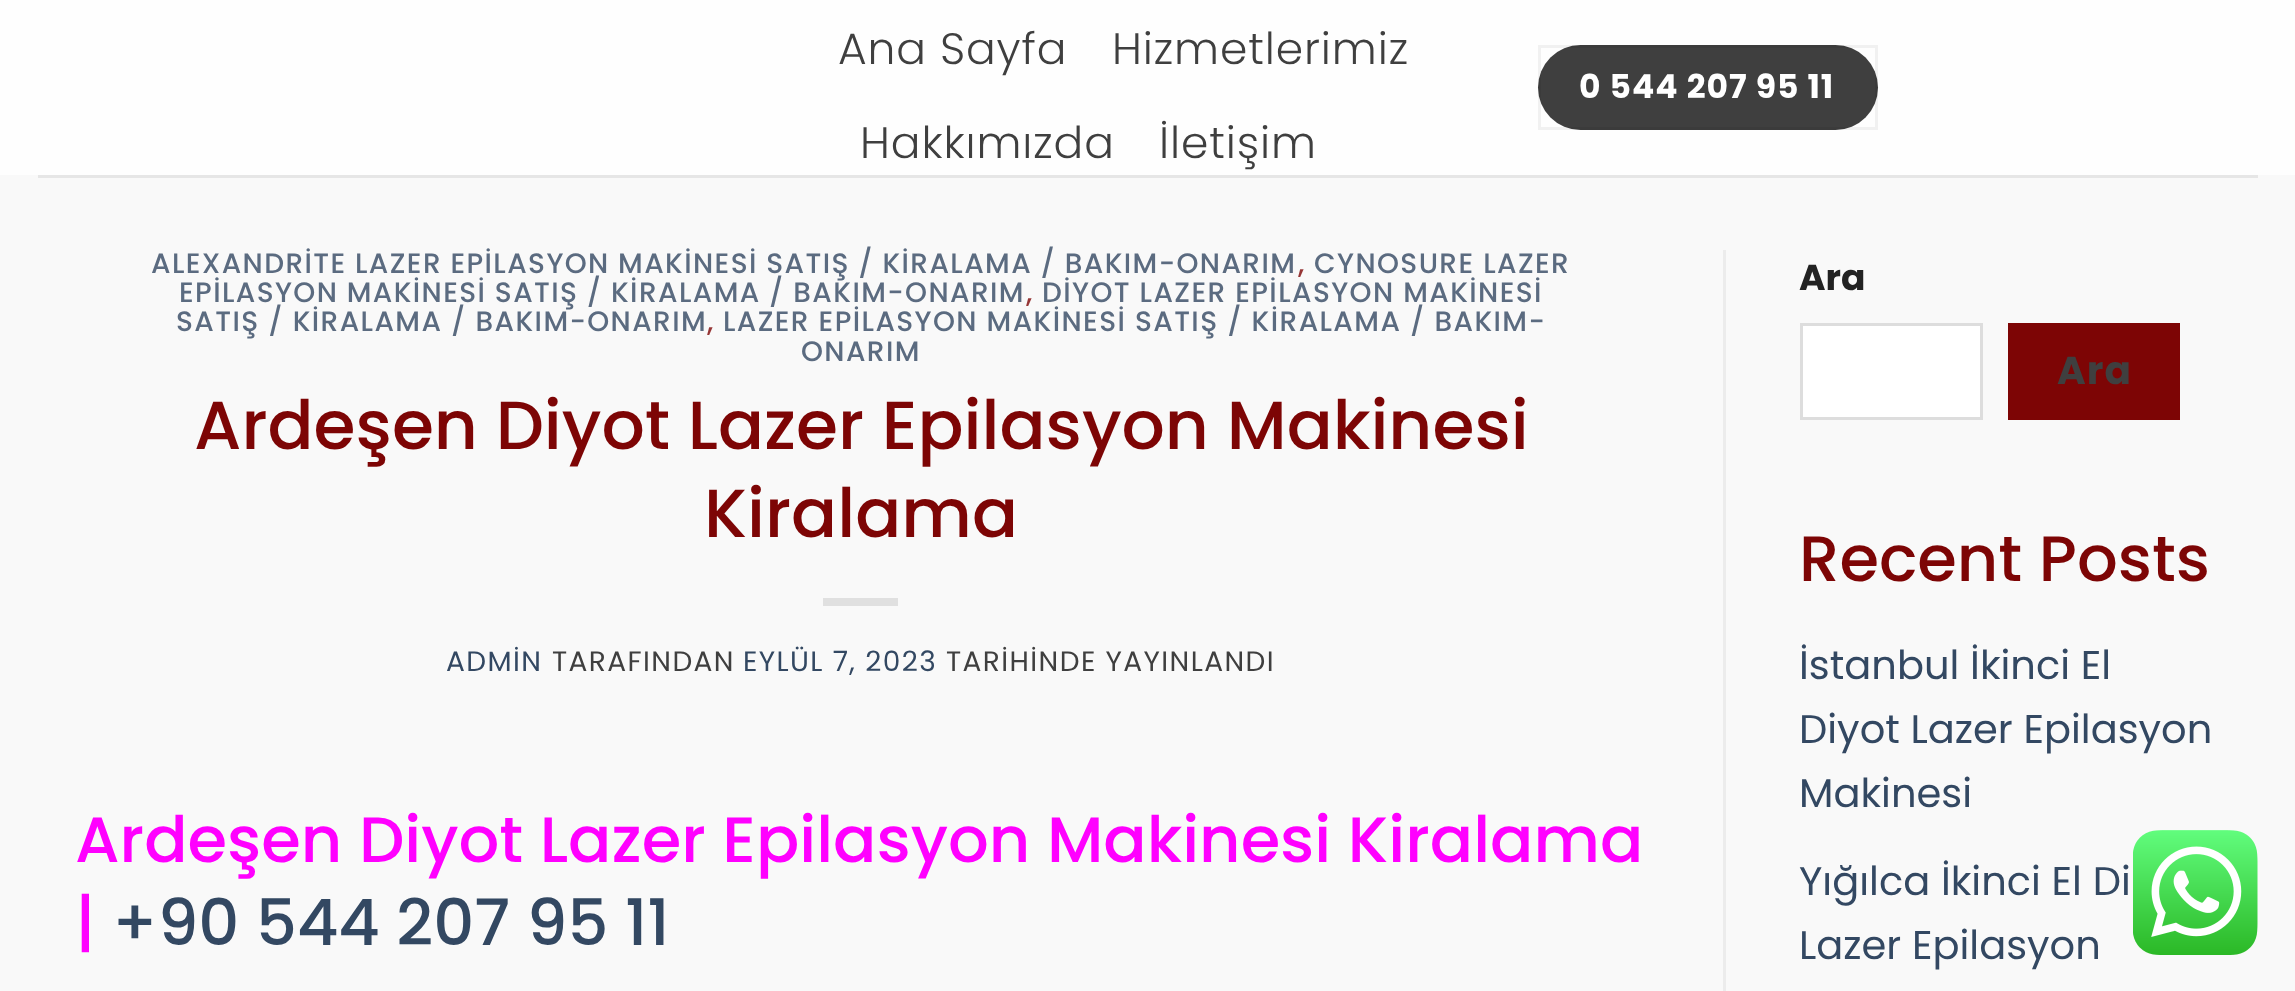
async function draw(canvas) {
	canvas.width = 2295;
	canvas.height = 991;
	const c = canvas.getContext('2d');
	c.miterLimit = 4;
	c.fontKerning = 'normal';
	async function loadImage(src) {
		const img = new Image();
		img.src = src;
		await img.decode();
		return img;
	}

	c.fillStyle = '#f9f9f9';
	c.fillRect(0, 0, 2295, 991);
	c.fillStyle = '#fefefe';
	c.fillRect(0, 0, 2295, 175);
	c.letterSpacing = '0.9px';
	c.font = '300 44px Poppins';
	c.fillStyle = '#3f3f3f';
	for (const [text, x, y] of [
		['Ana Sayfa', 838, 64],
		['Hizmetlerimiz', 1112, 64],
		['Hakkımızda', 860, 158],
		['İletişim', 1159, 158],
	]) {
		c.fillText(text, x, y);
	}
	c.beginPath();
	c.roundRect(1538, 45, 340, 85, 42.5);
	c.fill();
	c.strokeStyle = '#0000000d';
	c.lineWidth = 3;
	c.strokeRect(1539.5, 46.5, 337, 82);
	c.letterSpacing = '1px';
	c.font = 'bold 33px Poppins';
	c.fillStyle = '#fff';
	c.fillText('0 544 207 95 11', 1579, 98);
	c.fillStyle = '#e6e6e6';
	c.fillRect(38, 175, 2220, 3);
	c.letterSpacing = '1.4px';
	c.wordSpacing = '-0.25px';
	c.font = '500 28px Poppins';
	c.fillStyle = '#5b6b80';
	c.fillText('ALEXANDRİTE LAZER EPİLASYON MAKİNESİ SATIŞ / KİRALAMA / BAKIM-ONARIM', 151, 273);
	c.wordSpacing = '0px';
	c.fillStyle = '#963636';
	c.fillText(',', 1298, 273);
	c.fillStyle = '#5b6b80';
	c.fillText('CYNOSURE LAZER', 1314, 273);
	c.wordSpacing = '-0.25px';
	c.fillText('EPİLASYON MAKİNESİ SATIŞ / KİRALAMA / BAKIM-ONARIM', 179, 302);
	c.wordSpacing = '0px';
	c.fillStyle = '#963636';
	c.fillText(',', 1026, 302);
	c.fillStyle = '#5b6b80';
	c.fillText('DİYOT LAZER EPİLASYON MAKİNESİ', 1042, 302);
	c.fillText('SATIŞ / KİRALAMA / BAKIM-ONARIM', 176, 331);
	c.fillStyle = '#963636';
	c.fillText(',', 707, 331);
	c.fillStyle = '#5b6b80';
	c.fillText('LAZER EPİLASYON MAKİNESİ SATIŞ / KİRALAMA / BAKIM-', 723, 331);
	c.fillText('ONARIM', 801, 361);
	c.letterSpacing = '0px';
	c.font = '500 68px Poppins';
	c.fillStyle = '#7d0505';
	c.fillText('Ardeşen Diyot Lazer Epilasyon Makinesi', 194, 449);
	c.fillText('Kiralama', 704, 537);
	c.fillStyle = '#e0e0e0';
	c.fillRect(823, 598, 75, 8);
	c.letterSpacing = '1.4px';
	c.font = '28px Poppins';
	c.fillStyle = '#334862';
	c.fillText('ADMİN', 446, 671);
	c.fillStyle = '#3f3f3f';
	c.fillText('TARAFINDAN', 552, 671);
	c.fillStyle = '#334862';
	c.fillText('EYLÜL 7, 2023', 743, 671);
	c.fillStyle = '#3f3f3f';
	c.fillText('TARİHİNDE YAYINLANDI', 946, 671);
	c.letterSpacing = '0px';
	c.font = '500 64px Poppins';
	c.fillStyle = '#f0f';
	c.fillText('Ardeşen Diyot Lazer Epilasyon Makinesi Kiralama', 75, 862);
	c.fillText('|', 75, 945);
	c.fillStyle = '#334862';
	c.fillText('+90 544 207 95 11', 112, 945);
	c.fillStyle = '#ececec';
	c.fillRect(1723, 250, 3, 741);
	c.font = 'bold 36px Poppins';
	c.fillStyle = '#222';
	c.fillText('Ara', 1799, 290);
	c.fillStyle = '#fff';
	c.beginPath();
	c.rect(1801.5, 324.5, 180, 94);
	c.fill();
	c.strokeStyle = '#ddd';
	c.stroke();
	c.fillStyle = '#7d0505';
	c.fillRect(2008, 323, 172, 97);
	c.letterSpacing = '1px';
	c.font = 'bold 39px Poppins';
	c.fillStyle = '#3f3f3f';
	c.fillText('Ara', 2057, 384);
	c.letterSpacing = '0px';
	c.font = '500 64px Poppins';
	c.fillStyle = '#7d0505';
	c.fillText('Recent Posts', 1799, 581);
	c.font = '40px Poppins';
	c.fillStyle = '#334862';
	for (const [text, x, y] of [
		['İstanbul İkinci El', 1799, 679],
		['Diyot Lazer Epilasyon', 1799, 743],
		['Makinesi', 1799, 807],
		['Yığılca İkinci El Di', 1799, 895],
		['Lazer Epilasyon', 1799, 959],
	]) {
		c.fillText(text, x, y);
	}
	c.drawImage(await loadImage('img1.png'), 2133, 830, 125, 125);
}

draw(document.querySelector('canvas'));
